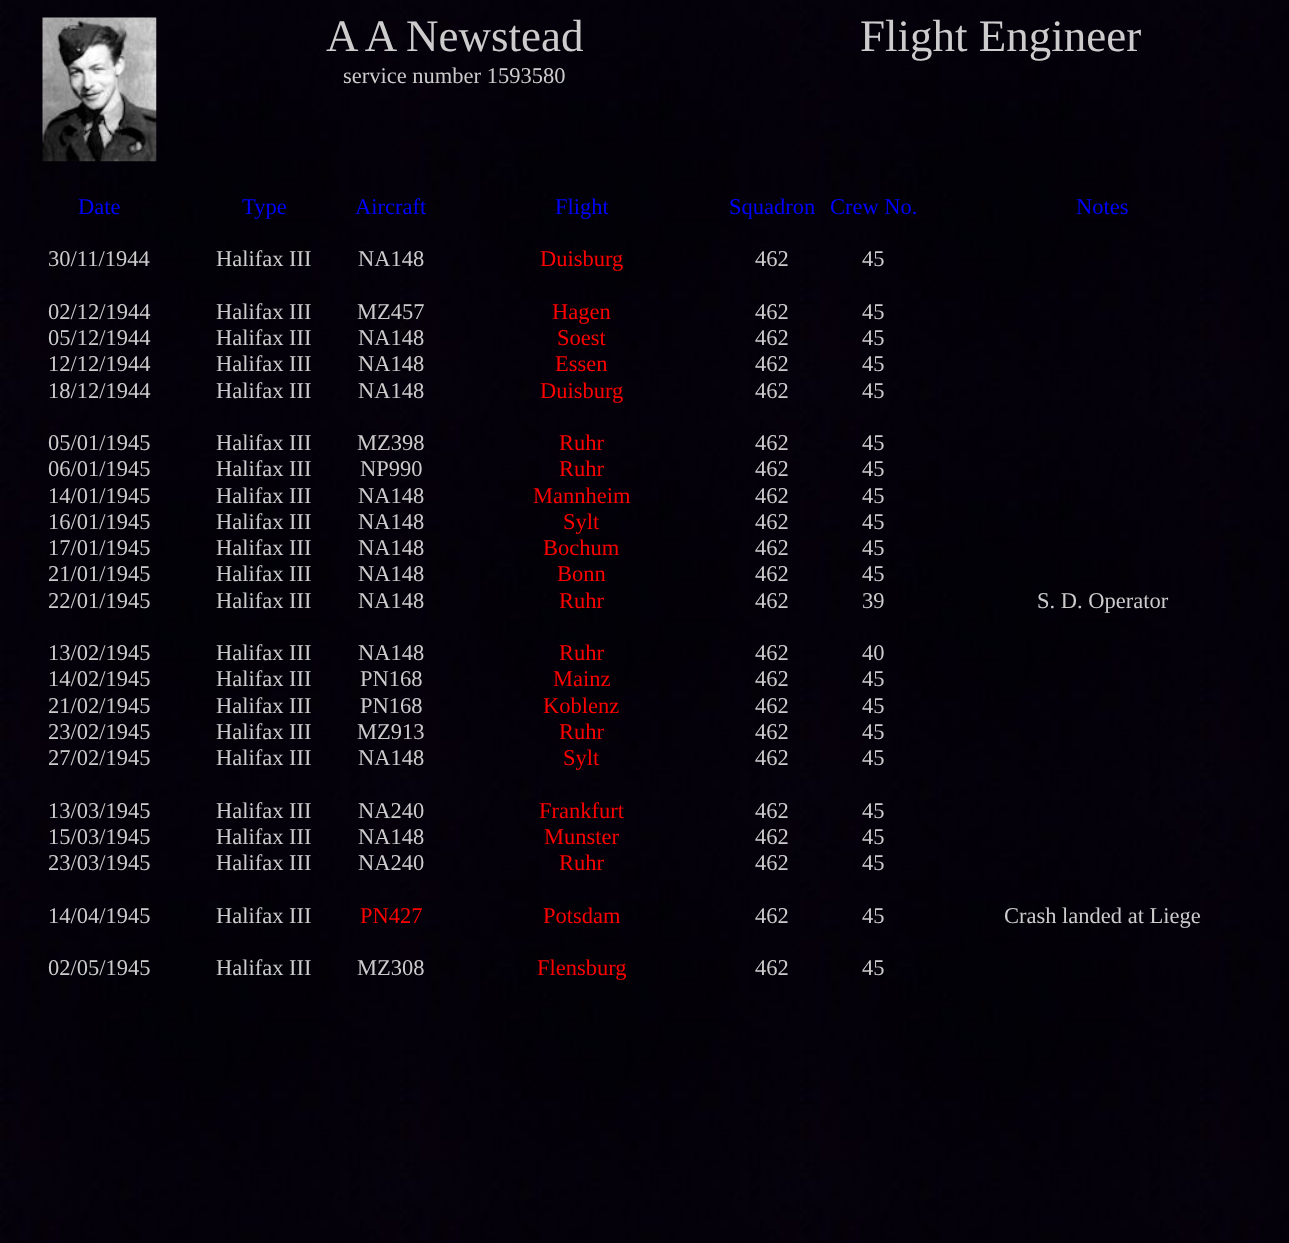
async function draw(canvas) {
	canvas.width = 1289;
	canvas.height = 1243;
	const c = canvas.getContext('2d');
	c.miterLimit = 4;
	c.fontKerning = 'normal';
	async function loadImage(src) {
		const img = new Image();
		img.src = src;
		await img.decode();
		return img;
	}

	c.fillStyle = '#fff';
	c.fillRect(0, 0, 1289, 1243);
	c.drawImage(await loadImage('img1.png'), 0, 0, 1289, 1243);
	c.drawImage(await loadImage('img2.png'), 42, 17, 115, 145);
	c.font = '45px Liberation Serif';
	c.fillStyle = '#ccc';
	c.fillText('A A Newstead', 326, 51);
	c.fillText('Flight Engineer', 860, 51);
	c.font = '22.5px Liberation Serif';
	c.fillText('service number 1593580', 343, 83);
	c.fillStyle = '#00f';
	for (const [text, x, y] of [
		['Date', 78, 214],
		['Type', 242, 214],
		['Aircraft', 355, 214],
		['Flight', 555, 214],
		['Squadron', 729, 214],
		['Crew No.', 830, 214],
		['Notes', 1076, 214],
	]) {
		c.fillText(text, x, y);
	}
	c.fillStyle = '#ccc';
	for (const [text, x, y] of [
		['30/11/1944', 48, 266],
		['Halifax III', 216, 266],
		['NA148', 358, 266],
	]) {
		c.fillText(text, x, y);
	}
	c.fillStyle = '#f00';
	c.fillText('Duisburg', 540, 266);
	c.fillStyle = '#ccc';
	for (const [text, x, y] of [
		['462', 755, 266],
		['45', 862, 266],
		['02/12/1944', 48, 319],
		['Halifax III', 216, 319],
		['MZ457', 357, 319],
	]) {
		c.fillText(text, x, y);
	}
	c.fillStyle = '#f00';
	c.fillText('Hagen', 552, 319);
	c.fillStyle = '#ccc';
	for (const [text, x, y] of [
		['462', 755, 319],
		['45', 862, 319],
		['05/12/1944', 48, 345],
		['Halifax III', 216, 345],
		['NA148', 358, 345],
	]) {
		c.fillText(text, x, y);
	}
	c.fillStyle = '#f00';
	c.fillText('Soest', 557, 345);
	c.fillStyle = '#ccc';
	for (const [text, x, y] of [
		['462', 755, 345],
		['45', 862, 345],
		['12/12/1944', 48, 371],
		['Halifax III', 216, 371],
		['NA148', 358, 371],
	]) {
		c.fillText(text, x, y);
	}
	c.fillStyle = '#f00';
	c.fillText('Essen', 555, 371);
	c.fillStyle = '#ccc';
	for (const [text, x, y] of [
		['462', 755, 371],
		['45', 862, 371],
		['18/12/1944', 48, 398],
		['Halifax III', 216, 398],
		['NA148', 358, 398],
	]) {
		c.fillText(text, x, y);
	}
	c.fillStyle = '#f00';
	c.fillText('Duisburg', 540, 398);
	c.fillStyle = '#ccc';
	for (const [text, x, y] of [
		['462', 755, 398],
		['45', 862, 398],
		['05/01/1945', 48, 450],
		['Halifax III', 216, 450],
		['MZ398', 357, 450],
	]) {
		c.fillText(text, x, y);
	}
	c.fillStyle = '#f00';
	c.fillText('Ruhr', 559, 450);
	c.fillStyle = '#ccc';
	for (const [text, x, y] of [
		['462', 755, 450],
		['45', 862, 450],
		['06/01/1945', 48, 476],
		['Halifax III', 216, 476],
		['NP990', 360, 476],
	]) {
		c.fillText(text, x, y);
	}
	c.fillStyle = '#f00';
	c.fillText('Ruhr', 559, 476);
	c.fillStyle = '#ccc';
	for (const [text, x, y] of [
		['462', 755, 476],
		['45', 862, 476],
		['14/01/1945', 48, 503],
		['Halifax III', 216, 503],
		['NA148', 358, 503],
	]) {
		c.fillText(text, x, y);
	}
	c.fillStyle = '#f00';
	c.fillText('Mannheim', 533, 503);
	c.fillStyle = '#ccc';
	for (const [text, x, y] of [
		['462', 755, 503],
		['45', 862, 503],
		['16/01/1945', 48, 529],
		['Halifax III', 216, 529],
		['NA148', 358, 529],
	]) {
		c.fillText(text, x, y);
	}
	c.fillStyle = '#f00';
	c.fillText('Sylt', 563, 529);
	c.fillStyle = '#ccc';
	for (const [text, x, y] of [
		['462', 755, 529],
		['45', 862, 529],
		['17/01/1945', 48, 555],
		['Halifax III', 216, 555],
		['NA148', 358, 555],
	]) {
		c.fillText(text, x, y);
	}
	c.fillStyle = '#f00';
	c.fillText('Bochum', 543, 555);
	c.fillStyle = '#ccc';
	for (const [text, x, y] of [
		['462', 755, 555],
		['45', 862, 555],
		['21/01/1945', 48, 581],
		['Halifax III', 216, 581],
		['NA148', 358, 581],
	]) {
		c.fillText(text, x, y);
	}
	c.fillStyle = '#f00';
	c.fillText('Bonn', 557, 581);
	c.fillStyle = '#ccc';
	for (const [text, x, y] of [
		['462', 755, 581],
		['45', 862, 581],
		['22/01/1945', 48, 608],
		['Halifax III', 216, 608],
		['NA148', 358, 608],
	]) {
		c.fillText(text, x, y);
	}
	c.fillStyle = '#f00';
	c.fillText('Ruhr', 559, 608);
	c.fillStyle = '#ccc';
	for (const [text, x, y] of [
		['462', 755, 608],
		['39', 862, 608],
		['S. D. Operator', 1037, 608],
		['13/02/1945', 48, 660],
		['Halifax III', 216, 660],
		['NA148', 358, 660],
	]) {
		c.fillText(text, x, y);
	}
	c.fillStyle = '#f00';
	c.fillText('Ruhr', 559, 660);
	c.fillStyle = '#ccc';
	for (const [text, x, y] of [
		['462', 755, 660],
		['40', 862, 660],
		['14/02/1945', 48, 686],
		['Halifax III', 216, 686],
		['PN168', 360, 686],
	]) {
		c.fillText(text, x, y);
	}
	c.fillStyle = '#f00';
	c.fillText('Mainz', 553, 686);
	c.fillStyle = '#ccc';
	for (const [text, x, y] of [
		['462', 755, 686],
		['45', 862, 686],
		['21/02/1945', 48, 713],
		['Halifax III', 216, 713],
		['PN168', 360, 713],
	]) {
		c.fillText(text, x, y);
	}
	c.fillStyle = '#f00';
	c.fillText('Koblenz', 543, 713);
	c.fillStyle = '#ccc';
	for (const [text, x, y] of [
		['462', 755, 713],
		['45', 862, 713],
		['23/02/1945', 48, 739],
		['Halifax III', 216, 739],
		['MZ913', 357, 739],
	]) {
		c.fillText(text, x, y);
	}
	c.fillStyle = '#f00';
	c.fillText('Ruhr', 559, 739);
	c.fillStyle = '#ccc';
	for (const [text, x, y] of [
		['462', 755, 739],
		['45', 862, 739],
		['27/02/1945', 48, 765],
		['Halifax III', 216, 765],
		['NA148', 358, 765],
	]) {
		c.fillText(text, x, y);
	}
	c.fillStyle = '#f00';
	c.fillText('Sylt', 563, 765);
	c.fillStyle = '#ccc';
	for (const [text, x, y] of [
		['462', 755, 765],
		['45', 862, 765],
		['13/03/1945', 48, 818],
		['Halifax III', 216, 818],
		['NA240', 358, 818],
	]) {
		c.fillText(text, x, y);
	}
	c.fillStyle = '#f00';
	c.fillText('Frankfurt', 539, 818);
	c.fillStyle = '#ccc';
	for (const [text, x, y] of [
		['462', 755, 818],
		['45', 862, 818],
		['15/03/1945', 48, 844],
		['Halifax III', 216, 844],
		['NA148', 358, 844],
	]) {
		c.fillText(text, x, y);
	}
	c.fillStyle = '#f00';
	c.fillText('Munster', 544, 844);
	c.fillStyle = '#ccc';
	for (const [text, x, y] of [
		['462', 755, 844],
		['45', 862, 844],
		['23/03/1945', 48, 870],
		['Halifax III', 216, 870],
		['NA240', 358, 870],
	]) {
		c.fillText(text, x, y);
	}
	c.fillStyle = '#f00';
	c.fillText('Ruhr', 559, 870);
	c.fillStyle = '#ccc';
	for (const [text, x, y] of [
		['462', 755, 870],
		['45', 862, 870],
		['14/04/1945', 48, 923],
		['Halifax III', 216, 923],
	]) {
		c.fillText(text, x, y);
	}
	c.fillStyle = '#f00';
	c.fillText('PN427', 360, 923);
	c.fillText('Potsdam', 543, 923);
	c.fillStyle = '#ccc';
	for (const [text, x, y] of [
		['462', 755, 923],
		['45', 862, 923],
		['Crash landed at Liege', 1004, 923],
		['02/05/1945', 48, 975],
		['Halifax III', 216, 975],
		['MZ308', 357, 975],
	]) {
		c.fillText(text, x, y);
	}
	c.fillStyle = '#f00';
	c.fillText('Flensburg', 537, 975);
	c.fillStyle = '#ccc';
	c.fillText('462', 755, 975);
	c.fillText('45', 862, 975);
}

draw(document.querySelector('canvas'));
